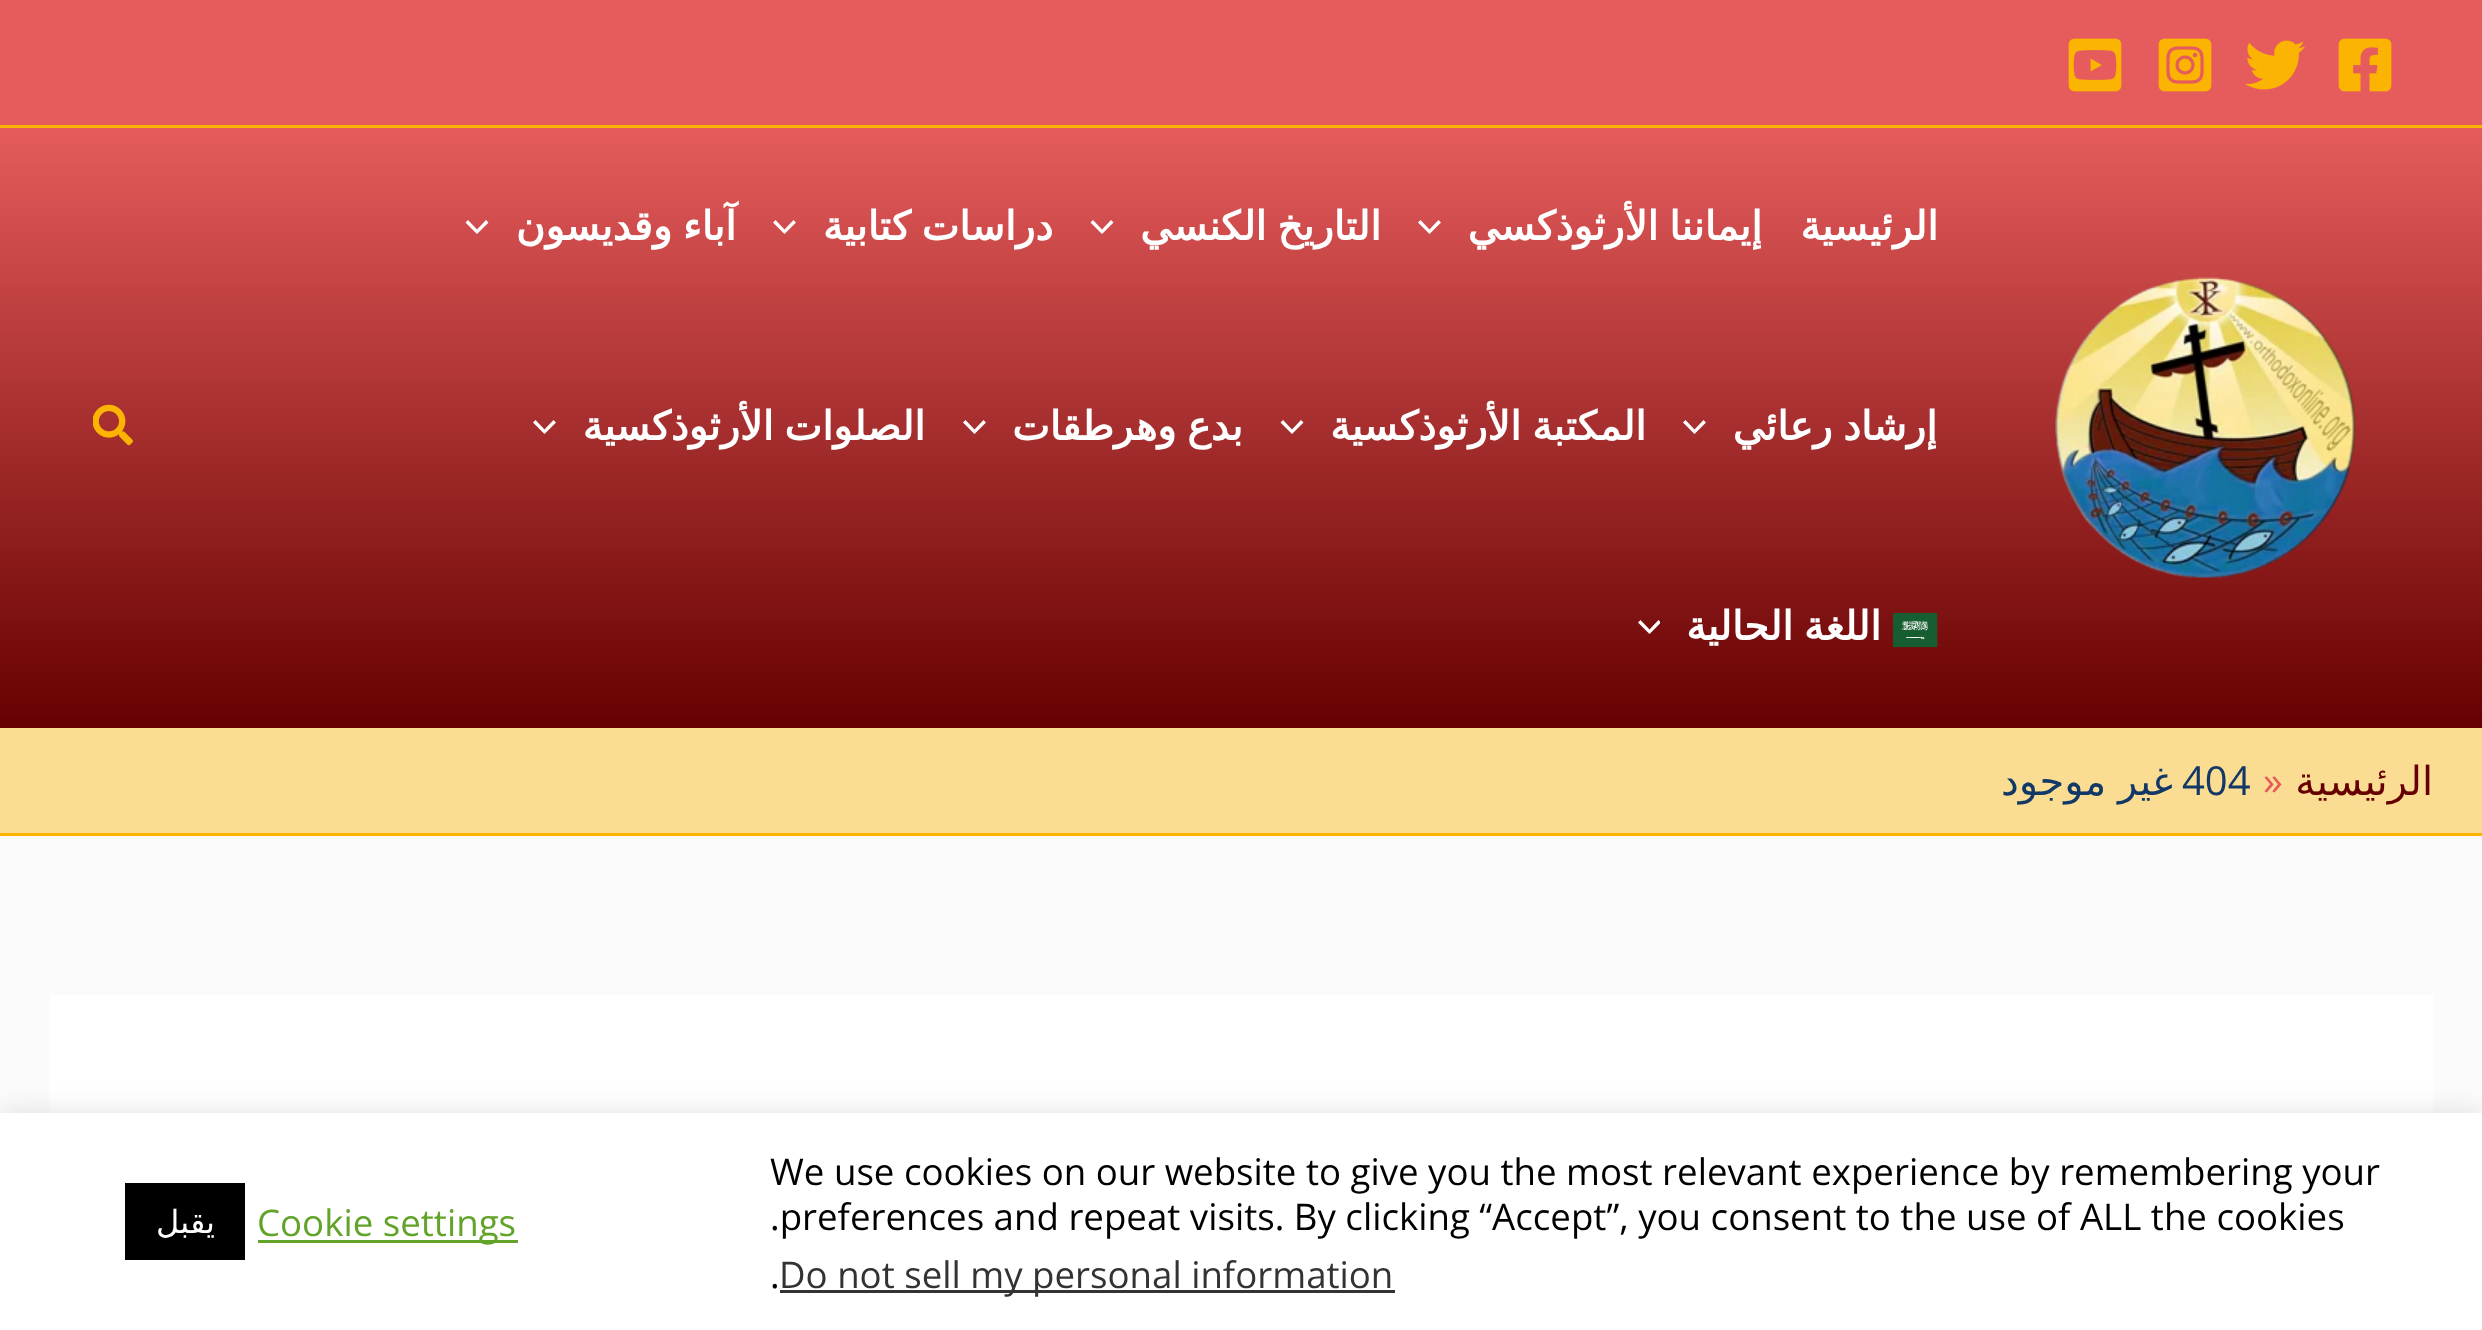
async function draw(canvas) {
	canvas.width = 2482;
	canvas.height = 1330;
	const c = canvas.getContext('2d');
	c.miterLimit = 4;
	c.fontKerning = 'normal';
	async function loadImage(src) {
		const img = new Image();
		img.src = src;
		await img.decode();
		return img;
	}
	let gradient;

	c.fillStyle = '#fbfbfb';
	c.fillRect(0, 0, 2482, 1330);
	c.fillStyle = '#e65c5c';
	c.fillRect(0, 0, 2482, 125);
	c.fillStyle = '#fbb401';
	c.fillRect(0, 125, 2482, 3);
	c.drawImage(await loadImage('img1.png'), 2068, 38, 54, 54);
	c.drawImage(await loadImage('img2.png'), 2158, 38, 54, 54);
	c.drawImage(await loadImage('img3.png'), 2245, 40, 60, 50);
	c.drawImage(await loadImage('img4.png'), 2338, 38, 54, 54);
	gradient = c.createLinearGradient(1241, 127, 1241, 728);
	gradient.addColorStop(0, '#e65c5c');
	gradient.addColorStop(1, '#600');
	c.fillStyle = gradient;
	c.fillRect(0, 128, 2482, 600);
	c.drawImage(await loadImage('img5.png'), 93, 404, 40, 42);
	c.fillStyle = '#fff';
	c.beginPath();
	c.moveTo(465.5, 222.5);
	c.lineTo(477, 234);
	c.lineTo(488.5, 222.5);
	c.lineTo(486, 220);
	c.lineTo(477, 229.5);
	c.lineTo(468, 220);
	c.closePath();
	c.fill();
	c.wordSpacing = '-2px';
	c.direction = 'rtl';
	c.font = 'bold 40px DejaVu Sans';
	c.fillText('آباء وقديسون', 736, 240);
	c.beginPath();
	c.moveTo(773, 222.5);
	c.lineTo(784.5, 234);
	c.lineTo(796, 222.5);
	c.lineTo(793.5, 220);
	c.lineTo(784.5, 229.5);
	c.lineTo(775.5, 220);
	c.closePath();
	c.fill();
	c.fillText('دراسات كتابية', 1053, 240);
	c.beginPath();
	c.moveTo(1090.5, 222.5);
	c.lineTo(1102, 234);
	c.lineTo(1113.5, 222.5);
	c.lineTo(1111, 220);
	c.lineTo(1102, 229.5);
	c.lineTo(1093, 220);
	c.closePath();
	c.fill();
	c.fillText('التاريخ الكنسي', 1381, 240);
	c.beginPath();
	c.moveTo(1418, 222.5);
	c.lineTo(1429.5, 234);
	c.lineTo(1441, 222.5);
	c.lineTo(1438.5, 220);
	c.lineTo(1429.5, 229.5);
	c.lineTo(1420.5, 220);
	c.closePath();
	c.fill();
	c.fillText('إيماننا الأرثوذكسي', 1762, 240);
	c.wordSpacing = '0px';
	c.fillText('الرئيسية', 1938, 240);
	c.beginPath();
	c.moveTo(533, 422.5);
	c.lineTo(544.5, 434);
	c.lineTo(556, 422.5);
	c.lineTo(553.5, 420);
	c.lineTo(544.5, 429.5);
	c.lineTo(535.5, 420);
	c.closePath();
	c.fill();
	c.wordSpacing = '-2px';
	c.fillText('الصلوات الأرثوذكسية', 925, 440);
	c.beginPath();
	c.moveTo(963, 422.5);
	c.lineTo(974.5, 434);
	c.lineTo(986, 422.5);
	c.lineTo(983.5, 420);
	c.lineTo(974.5, 429.5);
	c.lineTo(965.5, 420);
	c.closePath();
	c.fill();
	c.fillText('بدع وهرطقات', 1243, 440);
	c.beginPath();
	c.moveTo(1280.5, 422.5);
	c.lineTo(1292, 434);
	c.lineTo(1303.5, 422.5);
	c.lineTo(1301, 420);
	c.lineTo(1292, 429.5);
	c.lineTo(1283, 420);
	c.closePath();
	c.fill();
	c.fillText('المكتبة الأرثوذكسية', 1646, 440);
	c.beginPath();
	c.moveTo(1683, 422.5);
	c.lineTo(1694.5, 434);
	c.lineTo(1706, 422.5);
	c.lineTo(1703.5, 420);
	c.lineTo(1694.5, 429.5);
	c.lineTo(1685.5, 420);
	c.closePath();
	c.fill();
	c.fillText('إرشاد رعائي', 1937, 440);
	c.save();
	c.beginPath();
	c.rect(1638, 615, 22, 25);
	c.clip();
	c.beginPath();
	c.moveTo(1638, 622.5);
	c.lineTo(1649.5, 634);
	c.lineTo(1661, 622.5);
	c.lineTo(1658.5, 620);
	c.lineTo(1649.5, 629.5);
	c.lineTo(1640.5, 620);
	c.closePath();
	c.fill();
	c.restore();
	c.fillText('اللغة الحالية', 1881, 640);
	c.drawImage(await loadImage('img6.png'), 1893, 613, 45, 35);
	c.drawImage(await loadImage('img7.png'), 2055, 277, 300, 301);
	c.fillStyle = '#fadd92';
	c.fillRect(0, 728, 2482, 105);
	c.fillStyle = '#fbb401';
	c.fillRect(0, 833, 2482, 3);
	c.wordSpacing = '-1px';
	c.font = '40px DejaVu Sans';
	c.fillStyle = '#113866';
	c.fillText('غير موجود', 2173, 795);
	c.wordSpacing = '0px';
	c.direction = 'ltr';
	c.font = '40px Open Sans';
	c.fillText('404', 2182, 795);
	c.fillStyle = '#e65c5c';
	c.fillText('»', 2263, 795);
	c.direction = 'rtl';
	c.font = '40px DejaVu Sans';
	c.fillStyle = '#600';
	c.fillText('الرئيسية', 2433, 795);
	c.fillStyle = '#fff';
	c.fillRect(50, 995, 2383, 118);
	c.fillStyle = '#acabab4d';
	c.filter = 'blur(12.5px)';
	c.beginPath();
	c.rect(0, 1110, 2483, 218);
	c.fill();
	c.filter = 'none';
	c.fillStyle = '#fff';
	c.fillRect(0, 1113, 2482, 217);
	c.fillStyle = '#000';
	c.fillRect(125, 1183, 120, 77);
	c.font = '32px DejaVu Sans';
	c.fillStyle = '#fff';
	c.fillText('يقبل', 215, 1233);
	c.fillStyle = '#62a329';
	c.fillRect(258, 1240, 260, 3);
	c.direction = 'ltr';
	c.font = '36.65px Open Sans';
	c.fillText('Cookie settings', 257, 1236);
	c.fillStyle = '#000';
	for (const [text, x, y] of [
		['We use cookies on our website to give you the most relevant experience by remembering your', 770, 1185],
		['.preferences and repeat visits. By clicking “Accept”, you consent to the use of ALL the cookies', 770, 1230],
		['.', 770, 1288],
	]) {
		c.fillText(text, x, y);
	}
	c.fillStyle = '#333';
	c.fillRect(780, 1290, 615, 3);
	c.fillText('Do not sell my personal information', 779, 1288);
}

draw(document.querySelector('canvas'));
